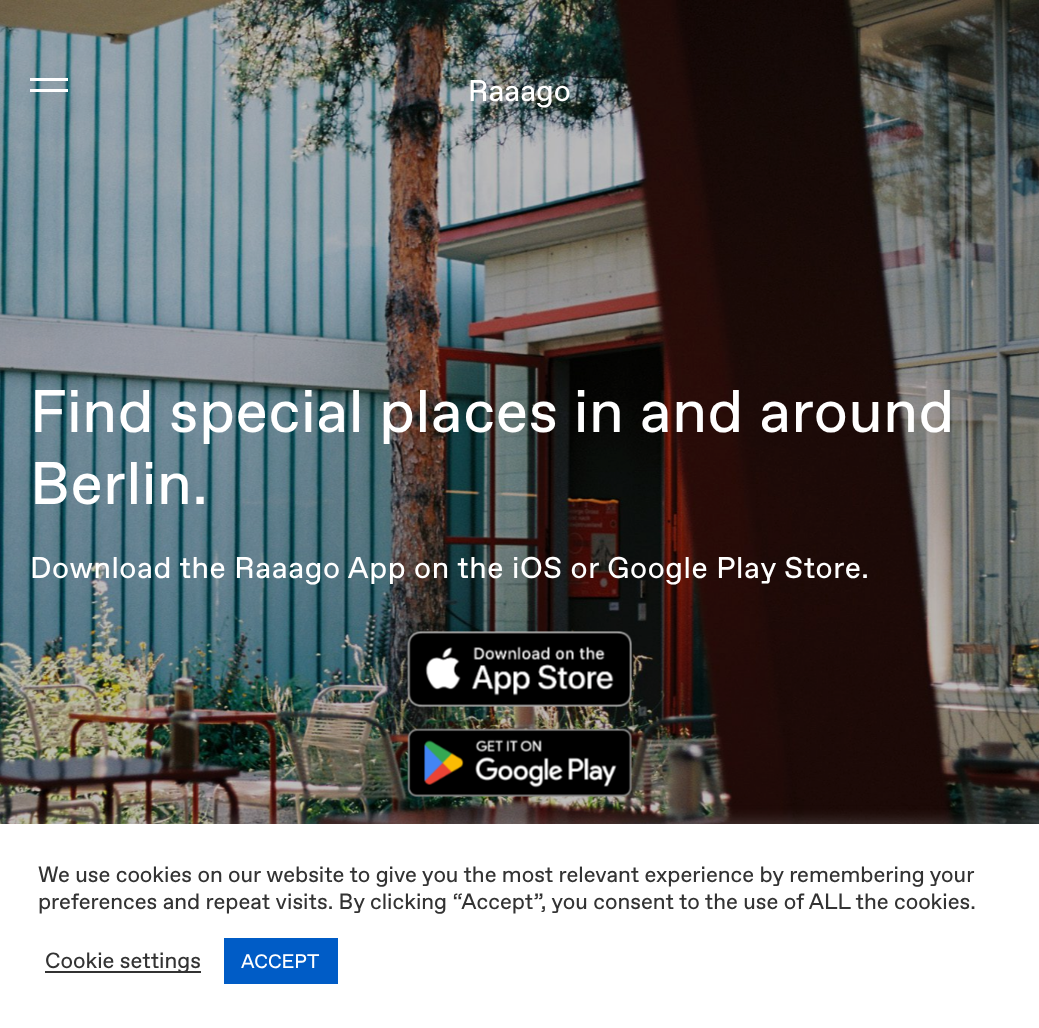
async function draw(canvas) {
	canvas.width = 1039;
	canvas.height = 1028;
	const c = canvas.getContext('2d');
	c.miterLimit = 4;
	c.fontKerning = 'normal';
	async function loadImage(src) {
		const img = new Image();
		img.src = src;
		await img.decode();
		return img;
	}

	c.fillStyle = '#fff';
	c.fillRect(0, 0, 1039, 1028);
	c.drawImage(await loadImage('img1.png'), 0, 0, 1039, 824);
	c.fillRect(30, 78, 38, 3);
	c.fillRect(30, 89, 38, 3);
	c.font = '30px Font';
	c.fillText('Raaago', 468, 101);
	c.letterSpacing = '0.6px';
	c.font = '60px Font';
	c.fillText('Find special places in and around', 30, 432);
	c.fillText('Berlin.', 30, 504);
	c.font = '30px Font';
	c.fillText('Download the Raaago App on the iOS or Google Play Store.', 30, 578);
	c.drawImage(await loadImage('img2.png'), 407, 631, 225, 76);
	c.drawImage(await loadImage('img3.png'), 407, 728, 225, 69);
	c.fillStyle = '#acabab4d';
	c.filter = 'blur(7.5px)';
	c.beginPath();
	c.rect(0, 822, 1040, 206);
	c.fill();
	c.filter = 'none';
	c.fillStyle = '#fff';
	c.fillRect(0, 824, 1039, 204);
	c.letterSpacing = '0px';
	c.font = '22px Font';
	c.fillStyle = '#333';
	c.fillText('We use cookies on our website to give you the most relevant experience by remembering your', 38, 882);
	c.fillText('preferences and repeat visits. By clicking “Accept”, you consent to the use of ALL the cookies.', 38, 909);
	c.fillRect(45, 971, 156, 2);
	c.fillText('Cookie settings', 45, 968);
	c.fillStyle = '#005cc6';
	c.fillRect(224, 938, 114, 46);
	c.font = '19.5px Font';
	c.fillStyle = '#fff';
	c.fillText('ACCEPT', 241, 968);
}

draw(document.querySelector('canvas'));
